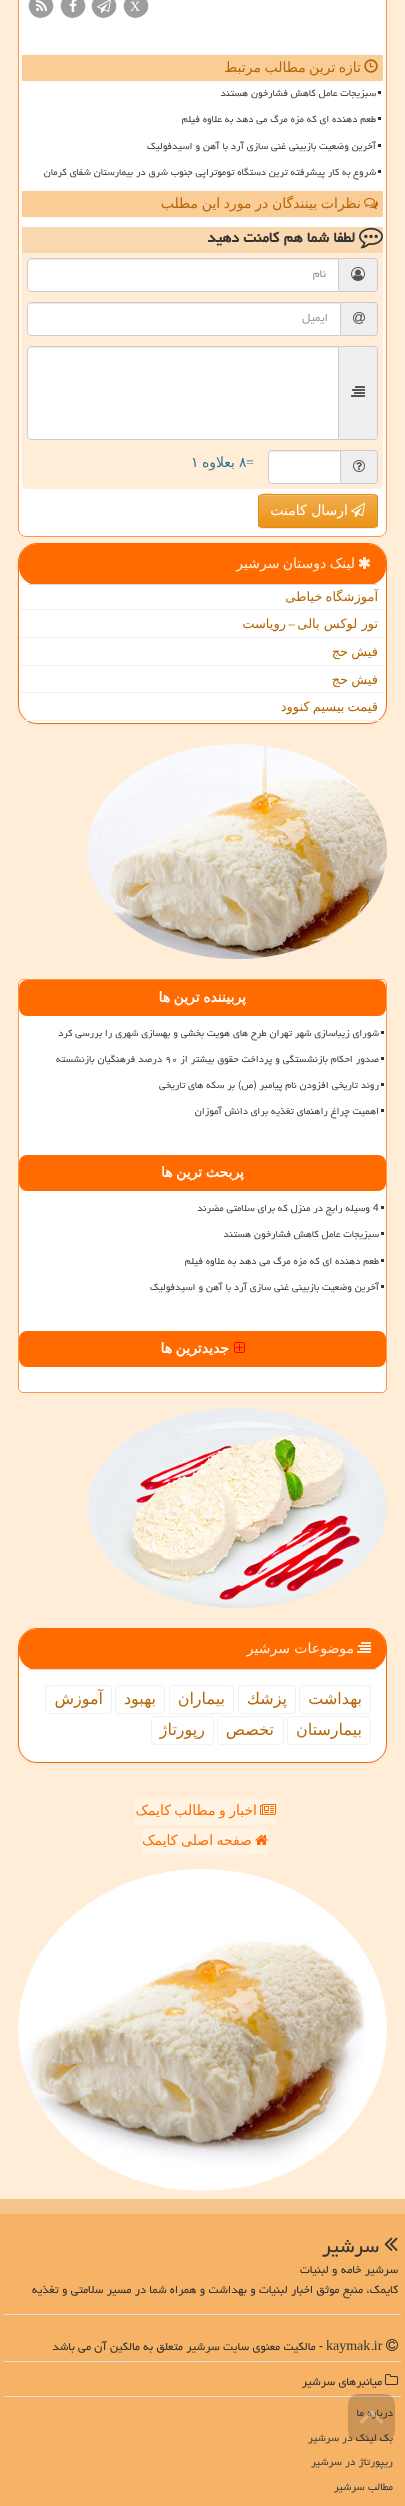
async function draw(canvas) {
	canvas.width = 405;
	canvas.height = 2506;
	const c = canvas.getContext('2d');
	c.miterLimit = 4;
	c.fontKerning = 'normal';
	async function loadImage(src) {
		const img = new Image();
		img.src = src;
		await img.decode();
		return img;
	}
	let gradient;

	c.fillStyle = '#ffedd7';
	c.fillRect(0, 0, 405, 2506);
	c.fillStyle = '#fff';
	c.beginPath();
	c.roundRect(18.5, -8.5, 368, 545, 7.5);
	c.fill();
	c.strokeStyle = '#ff9548';
	c.stroke();
	c.fillStyle = '#9d9d9d';
	c.beginPath();
	c.moveTo(146.5, 0);
	c.bezierCurveTo(154.5, 13.5, 133.5, 25.5, 125.5, 12);
	c.bezierCurveTo(117.5, -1.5, 138.5, -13.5, 146.5, 0);
	c.closePath();
	c.fill();
	c.font = '14px Liberation Serif';
	c.fillStyle = '#fff';
	c.fillText('X', 130, 11);
	c.fillStyle = '#9d9d9d';
	c.beginPath();
	c.moveTo(114.5, 0);
	c.bezierCurveTo(122.5, 13.5, 101.5, 25.5, 93.5, 12);
	c.bezierCurveTo(85.5, -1.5, 106.5, -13.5, 114.5, 0);
	c.closePath();
	c.fill();
	c.drawImage(await loadImage('img1.png'), 97, 0, 14, 13);
	c.beginPath();
	c.moveTo(83.5, 0);
	c.bezierCurveTo(91.5, 13.5, 70.5, 25.5, 62.5, 12);
	c.bezierCurveTo(54.5, -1.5, 75.5, -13.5, 83.5, 0);
	c.closePath();
	c.fill();
	c.drawImage(await loadImage('img2.png'), 69, 0, 8, 12);
	c.beginPath();
	c.moveTo(51.5, 0);
	c.bezierCurveTo(59.5, 13.5, 38.5, 25.5, 30.5, 12);
	c.bezierCurveTo(22.5, -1.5, 43.5, -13.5, 51.5, 0);
	c.closePath();
	c.fill();
	c.drawImage(await loadImage('img3.png'), 36, 0, 11, 11);
	c.fillStyle = '#facd96';
	c.fillRect(22, 55, 361, 26);
	c.drawImage(await loadImage('img4.png'), 364, 59, 14, 14);
	c.wordSpacing = '-1px';
	c.direction = 'rtl';
	c.font = '14px DejaVu Sans';
	c.fillStyle = '#b56708';
	c.fillText('تازه ترین مطالب مرتبط', 361, 72);
	c.fillStyle = '#333';
	c.fillRect(378, 91, 3, 3);
	c.wordSpacing = '0px';
	c.font = '12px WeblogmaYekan';
	c.fillStyle = '#4a4a4a';
	c.fillText('سبزیجات عامل کاهش فشارخون هستند', 376, 96);
	c.fillStyle = '#333';
	c.fillRect(378, 117, 3, 3);
	c.fillStyle = '#4a4a4a';
	c.fillText('طعم دهنده ای که مزه مرگ می دهد به علاوه فیلم', 376, 122);
	c.fillStyle = '#333';
	c.fillRect(378, 144, 3, 3);
	c.fillStyle = '#4a4a4a';
	c.fillText('آخرین وضعیت بازبینی غنی سازی آرد با آهن و اسیدفولیک', 376, 149);
	c.fillStyle = '#333';
	c.fillRect(378, 170, 3, 3);
	c.fillStyle = '#4a4a4a';
	c.fillText('شروع به کار پیشرفته ترین دستگاه توموتراپی جنوب شرق در بیمارستان شفای کرمان', 376, 175);
	c.fillStyle = '#facd96';
	c.fillRect(22, 191, 361, 26);
	c.drawImage(await loadImage('img5.png'), 364, 198, 14, 11);
	c.wordSpacing = '-0.75px';
	c.font = '14px DejaVu Sans';
	c.fillStyle = '#b56708';
	c.fillText('نظرات بینندگان در مورد این مطلب', 361, 208);
	c.fillStyle = '#fbd9b0';
	c.fillRect(22, 227, 361, 26);
	c.drawImage(await loadImage('img6.png'), 359, 227, 24, 22);
	c.wordSpacing = '0px';
	c.font = 'bold 18px WeblogmaYekan';
	c.fillStyle = '#333';
	c.fillText('لطفا شما هم', 355, 242);
	c.fillText('کامنت دهید', 279, 242);
	c.fillStyle = '#ffedd7';
	c.beginPath();
	c.roundRect(22, 253, 361, 236, [0, 0, 5, 5]);
	c.fill();
	c.fillStyle = '#eee';
	c.beginPath();
	c.roundRect(339, 258, 39, 34, [0, 4, 4, 0]);
	c.fill();
	c.fillStyle = '#ccc';
	c.beginPath();
	c.moveTo(339, 258);
	c.lineTo(374, 258);
	c.bezierCurveTo(376, 258, 378, 260, 378, 262);
	c.lineTo(378, 288);
	c.bezierCurveTo(378, 290, 376, 292, 374, 292);
	c.lineTo(339, 292);
	c.closePath();
	c.moveTo(339, 259);
	c.lineTo(374, 259);
	c.bezierCurveTo(375.5, 259, 377, 260.5, 377, 262);
	c.lineTo(377, 288);
	c.bezierCurveTo(377, 289.5, 375.5, 291, 374, 291);
	c.lineTo(339, 291);
	c.closePath();
	c.fill('evenodd');
	c.drawImage(await loadImage('img7.png'), 351, 267, 14, 14);
	c.fillStyle = '#fff';
	c.beginPath();
	c.roundRect(27, 258, 312, 34, [4, 0, 0, 4]);
	c.fill();
	c.fillStyle = '#ececec';
	c.beginPath();
	c.moveTo(31, 260);
	c.lineTo(338, 260);
	c.lineTo(338, 259);
	c.lineTo(31, 259);
	c.bezierCurveTo(29, 259, 28, 261, 28, 263);
	c.bezierCurveTo(28, 261, 29, 260, 31, 260);
	c.closePath();
	c.fill();
	c.beginPath();
	c.roundRect(27.5, 258.5, 311, 33, [3.5, 0, 0, 3.5]);
	c.strokeStyle = '#ccc';
	c.stroke();
	c.font = '14px WeblogmaYekan';
	c.fillStyle = '#999';
	c.fillText('نام', 326, 277);
	c.fillStyle = '#eee';
	c.beginPath();
	c.roundRect(341, 302, 37, 34, [0, 4, 4, 0]);
	c.fill();
	c.fillStyle = '#ccc';
	c.beginPath();
	c.moveTo(341, 302);
	c.lineTo(374, 302);
	c.bezierCurveTo(376, 302, 378, 304, 378, 306);
	c.lineTo(378, 332);
	c.bezierCurveTo(378, 334, 376, 336, 374, 336);
	c.lineTo(341, 336);
	c.closePath();
	c.moveTo(341, 303);
	c.lineTo(374, 303);
	c.bezierCurveTo(375.5, 303, 377, 304.5, 377, 306);
	c.lineTo(377, 332);
	c.bezierCurveTo(377, 333.5, 375.5, 335, 374, 335);
	c.lineTo(341, 335);
	c.closePath();
	c.fill('evenodd');
	c.drawImage(await loadImage('img8.png'), 353, 312, 12, 12);
	c.fillStyle = '#fff';
	c.beginPath();
	c.roundRect(27, 302, 314, 34, [4, 0, 0, 4]);
	c.fill();
	c.fillStyle = '#ececec';
	c.beginPath();
	c.moveTo(31, 304);
	c.lineTo(340, 304);
	c.lineTo(340, 303);
	c.lineTo(31, 303);
	c.bezierCurveTo(29, 303, 28, 305, 28, 307);
	c.bezierCurveTo(28, 305, 29, 304, 31, 304);
	c.closePath();
	c.fill();
	c.beginPath();
	c.roundRect(27.5, 302.5, 313, 33, [3.5, 0, 0, 3.5]);
	c.stroke();
	c.fillStyle = '#999';
	c.fillText('ایمیل', 328, 321);
	c.fillStyle = '#eee';
	c.beginPath();
	c.roundRect(339, 346, 39, 94, [0, 4, 4, 0]);
	c.fill();
	c.fillStyle = '#ccc';
	c.beginPath();
	c.moveTo(339, 346);
	c.lineTo(374, 346);
	c.bezierCurveTo(376, 346, 378, 348, 378, 350);
	c.lineTo(378, 436);
	c.bezierCurveTo(378, 438, 376, 440, 374, 440);
	c.lineTo(339, 440);
	c.closePath();
	c.moveTo(339, 347);
	c.lineTo(374, 347);
	c.bezierCurveTo(376, 347, 377, 348, 377, 350);
	c.lineTo(377, 436);
	c.bezierCurveTo(377, 438, 376, 439, 374, 439);
	c.lineTo(339, 439);
	c.closePath();
	c.fill('evenodd');
	c.drawImage(await loadImage('img9.png'), 351, 386, 14, 11);
	c.fillStyle = '#fff';
	c.beginPath();
	c.roundRect(27, 346, 312, 94, [4, 0, 0, 4]);
	c.fill();
	c.fillStyle = '#ececec';
	c.beginPath();
	c.moveTo(31, 348);
	c.lineTo(338, 348);
	c.lineTo(338, 347);
	c.lineTo(31, 347);
	c.bezierCurveTo(29, 347, 28, 349, 28, 351);
	c.bezierCurveTo(28, 349, 29, 348, 31, 348);
	c.closePath();
	c.fill();
	c.beginPath();
	c.roundRect(27.5, 346.5, 311, 93, [3.5, 0, 0, 3.5]);
	c.stroke();
	c.fillStyle = '#eee';
	c.beginPath();
	c.roundRect(341, 450, 37, 34, [0, 4, 4, 0]);
	c.fill();
	c.fillStyle = '#ccc';
	c.beginPath();
	c.moveTo(341, 450);
	c.lineTo(374, 450);
	c.bezierCurveTo(376, 450, 378, 452, 378, 454);
	c.lineTo(378, 480);
	c.bezierCurveTo(378, 482, 376, 484, 374, 484);
	c.lineTo(341, 484);
	c.closePath();
	c.moveTo(341, 451);
	c.lineTo(374, 451);
	c.bezierCurveTo(375.5, 451, 377, 452.5, 377, 454);
	c.lineTo(377, 480);
	c.bezierCurveTo(377, 481.5, 375.5, 483, 374, 483);
	c.lineTo(341, 483);
	c.closePath();
	c.fill('evenodd');
	c.drawImage(await loadImage('img10.png'), 353, 460, 12, 12);
	c.fillStyle = '#fff';
	c.beginPath();
	c.roundRect(268, 450, 73, 34, [4, 0, 0, 4]);
	c.fill();
	c.fillStyle = '#ececec';
	c.beginPath();
	c.moveTo(272, 452);
	c.lineTo(340, 452);
	c.lineTo(340, 451);
	c.lineTo(272, 451);
	c.bezierCurveTo(270, 451, 269, 452, 269, 454);
	c.lineTo(269, 455);
	c.bezierCurveTo(269, 453, 270, 452, 272, 452);
	c.closePath();
	c.fill();
	c.beginPath();
	c.roundRect(268.5, 450.5, 72, 33, [3.5, 0, 0, 3.5]);
	c.stroke();
	c.direction = 'ltr';
	c.font = '14px Liberation Serif';
	c.fillStyle = '#31708f';
	c.fillText('=', 246, 467);
	c.font = '14px DejaVu Sans';
	c.fillText('۸', 239, 467);
	c.direction = 'rtl';
	c.fillText('بعلاوه', 235, 467);
	c.direction = 'ltr';
	c.fillText('۱', 191, 467);
	c.fillStyle = '#00000012';
	c.filter = 'blur(0.5px)';
	c.beginPath();
	c.roundRect(258, 495, 120, 34, 4);
	c.fill();
	c.filter = 'none';
	c.save();
	c.beginPath();
	c.roundRect(258, 494, 120, 34, 4);
	c.clip();
	gradient = c.createLinearGradient(318, 495, 318, 527);
	gradient.addColorStop(0, '#f0ad4e');
	gradient.addColorStop(1, '#eb9316');
	c.fillStyle = gradient;
	c.fillRect(258, 495, 120, 32);
	c.restore();
	c.fillStyle = '#f2b968';
	c.beginPath();
	c.moveTo(262, 496);
	c.lineTo(374, 496);
	c.bezierCurveTo(376, 496, 377, 497, 377, 499);
	c.bezierCurveTo(377, 497, 376, 495, 374, 495);
	c.lineTo(281, 495);
	c.bezierCurveTo(279, 495, 259, 490, 259, 499);
	c.bezierCurveTo(259, 497, 260, 496, 262, 496);
	c.closePath();
	c.fill();
	c.beginPath();
	c.roundRect(258.5, 494.5, 119, 33, 3.5);
	c.strokeStyle = '#e38d13';
	c.stroke();
	c.drawImage(await loadImage('img11.png'), 351, 503, 14, 14);
	c.direction = 'rtl';
	c.fillStyle = '#fff';
	c.fillText('ارسال کامنت', 348, 515);
	c.fillStyle = '#0000000d';
	c.filter = 'blur(1px)';
	c.beginPath();
	c.roundRect(18, 544, 369, 181, 19);
	c.fill();
	c.filter = 'none';
	c.fillStyle = '#fff';
	c.beginPath();
	c.roundRect(18.5, 543.5, 368, 180, 18.5);
	c.fill();
	c.strokeStyle = '#ff6b00';
	c.stroke();
	c.fillStyle = '#ff6b00';
	c.beginPath();
	c.roundRect(19, 544, 367, 41, 18);
	c.fill();
	c.fillStyle = '#ddd';
	c.fillRect(28, 584, 349, 1);
	c.drawImage(await loadImage('img12.png'), 358, 557, 12, 12);
	c.wordSpacing = '-1px';
	c.fillStyle = '#fff0df';
	c.fillText('لینک دوستان سرشیر', 355, 568);
	c.fillStyle = '#f1f1f1';
	c.fillRect(19, 609, 367, 1);
	c.font = '13px DejaVu Sans';
	c.fillStyle = '#b56708';
	c.fillText('آموزشگاه خیاطی', 378, 601);
	c.fillStyle = '#f1f1f1';
	c.fillRect(19, 637, 367, 1);
	c.wordSpacing = '0px';
	c.fillStyle = '#b56708';
	c.fillText('تور لوکس بالی', 378, 628);
	c.font = '13px Liberation Serif';
	c.fillText('–', 295, 628);
	c.font = '13px DejaVu Sans';
	c.fillText('رویاست', 286, 628);
	c.fillStyle = '#f1f1f1';
	c.fillRect(19, 665, 367, 1);
	c.wordSpacing = '-1px';
	c.fillStyle = '#b56708';
	c.fillText('فیش حج', 378, 656);
	c.fillStyle = '#f1f1f1';
	c.fillRect(19, 692, 367, 1);
	c.fillStyle = '#b56708';
	c.fillText('فیش حج', 378, 684);
	c.fillStyle = '#f1f1f1';
	c.fillRect(19, 720, 367, 1);
	c.fillStyle = '#b56708';
	c.fillText('قیمت بیسیم کنوود', 378, 711);
	c.drawImage(await loadImage('img13.png'), 87, 744, 300, 215);
	c.fillStyle = '#fff';
	c.beginPath();
	c.roundRect(18.5, 979.5, 368, 413, 4.5);
	c.fill();
	c.strokeStyle = '#ff9548';
	c.stroke();
	c.fillStyle = '#ff6b00';
	c.beginPath();
	c.roundRect(19, 980, 367, 36, 8);
	c.fill();
	c.font = 'bold 14px DejaVu Sans';
	c.fillStyle = '#fff';
	c.fillText('پربیننده ترین ها', 246, 1002);
	c.fillStyle = '#333';
	c.fillRect(381, 1031, 3, 3);
	c.wordSpacing = '0px';
	c.font = '12px WeblogmaYekan';
	c.fillStyle = '#4a4a4a';
	c.fillText('شورای زیباسازی شهر تهران طرح های هویت بخشی و بهسازی شهری را بررسی کرد', 379, 1036);
	c.fillStyle = '#333';
	c.fillRect(381, 1057, 3, 3);
	c.fillStyle = '#4a4a4a';
	c.fillText('صدور احکام بازنشستگی و پرداخت حقوق بیشتر از', 379, 1062);
	c.direction = 'ltr';
	c.fillText('۹۰', 165, 1062);
	c.direction = 'rtl';
	c.fillText('درصد فرهنگیان بازنشسته', 162, 1062);
	c.fillStyle = '#333';
	c.fillRect(381, 1083, 3, 3);
	c.fillStyle = '#4a4a4a';
	c.fillText('روند تاریخی افزودن نام پیامبر (ص) بر سکه های تاریخی', 379, 1088);
	c.fillStyle = '#333';
	c.fillRect(381, 1109, 3, 3);
	c.fillStyle = '#4a4a4a';
	c.fillText('اهمیت چراغ راهنمای تغذیه برای دانش آموزان', 379, 1114);
	c.fillStyle = '#ff6b00';
	c.beginPath();
	c.roundRect(19, 1155, 367, 36, 8);
	c.fill();
	c.wordSpacing = '-1px';
	c.font = 'bold 14px DejaVu Sans';
	c.fillStyle = '#fff';
	c.fillText('پربحث ترین ها', 244, 1177);
	c.fillStyle = '#333';
	c.fillRect(381, 1206, 3, 3);
	c.wordSpacing = '0px';
	c.direction = 'ltr';
	c.font = '12px WeblogmaYekan';
	c.fillStyle = '#4a4a4a';
	c.fillText('4', 373, 1211);
	c.direction = 'rtl';
	c.fillText('وسیله رایج در منزل که برای سلامتی مضرند', 370, 1211);
	c.fillStyle = '#333';
	c.fillRect(381, 1232, 3, 3);
	c.fillStyle = '#4a4a4a';
	c.fillText('سبزیجات عامل کاهش فشارخون هستند', 379, 1237);
	c.fillStyle = '#333';
	c.fillRect(381, 1259, 3, 3);
	c.fillStyle = '#4a4a4a';
	c.fillText('طعم دهنده ای که مزه مرگ می دهد به علاوه فیلم', 379, 1264);
	c.fillStyle = '#333';
	c.fillRect(381, 1285, 3, 3);
	c.fillStyle = '#4a4a4a';
	c.fillText('آخرین وضعیت بازبینی غنی سازی آرد با آهن و اسیدفولیک', 379, 1290);
	c.fillStyle = '#ff6b00';
	c.beginPath();
	c.roundRect(19, 1331, 367, 36, 8);
	c.fill();
	c.drawImage(await loadImage('img14.png'), 234, 1342, 11, 11);
	c.wordSpacing = '-1px';
	c.font = 'bold 14px DejaVu Sans';
	c.fillStyle = '#fff';
	c.fillText('جدیدترین ها', 229, 1353);
	c.drawImage(await loadImage('img15.png'), 87, 1408, 300, 200);
	c.fillStyle = '#0000000d';
	c.filter = 'blur(1px)';
	c.beginPath();
	c.roundRect(18, 1629, 369, 135, 19);
	c.fill();
	c.filter = 'none';
	c.fillStyle = '#fff';
	c.beginPath();
	c.roundRect(18.5, 1628.5, 368, 134, 18.5);
	c.fill();
	c.strokeStyle = '#ff6b00';
	c.stroke();
	c.fillStyle = '#ff6b00';
	c.beginPath();
	c.roundRect(19, 1629, 367, 41, 18);
	c.fill();
	c.fillStyle = '#ddd';
	c.fillRect(28, 1669, 349, 1);
	c.drawImage(await loadImage('img16.png'), 357, 1642, 14, 11);
	c.wordSpacing = '0px';
	c.font = '14px DejaVu Sans';
	c.fillStyle = '#fff0df';
	c.fillText('موضوعات سرشیر', 354, 1653);
	c.beginPath();
	c.roundRect(299.5, 1685.5, 71, 28, 3.5);
	c.strokeStyle = '#f1f1f1';
	c.stroke();
	c.font = '16px DejaVu Sans';
	c.fillStyle = '#b56708';
	c.fillText('بهداشت', 362, 1704);
	c.beginPath();
	c.roundRect(238.5, 1685.5, 57, 28, 3.5);
	c.stroke();
	c.fillText('پزشك', 287, 1704);
	c.beginPath();
	c.roundRect(169.5, 1685.5, 64, 28, 3.5);
	c.stroke();
	c.fillText('بیماران', 225, 1704);
	c.beginPath();
	c.roundRect(115.5, 1685.5, 49, 28, 3.5);
	c.stroke();
	c.fillText('بهبود', 156, 1704);
	c.beginPath();
	c.roundRect(45.5, 1685.5, 66, 28, 3.5);
	c.stroke();
	c.fillText('آموزش', 103, 1704);
	c.beginPath();
	c.roundRect(287.5, 1716.5, 83, 28, 3.5);
	c.stroke();
	c.fillText('بیمارستان', 362, 1735);
	c.beginPath();
	c.roundRect(217.5, 1716.5, 66, 28, 3.5);
	c.stroke();
	c.fillText('تخصص', 274, 1735);
	c.beginPath();
	c.roundRect(151.5, 1716.5, 62, 28, 3.5);
	c.stroke();
	c.fillText('رپورتاژ', 205, 1735);
	c.fillStyle = '#fff3e4';
	c.beginPath();
	c.roundRect(255, 1799, 21, 25, [5, 0, 0, 5]);
	c.fill();
	c.beginPath();
	c.roundRect(134, 1799, 126, 26, [0, 5, 5, 0]);
	c.fill();
	c.drawImage(await loadImage('img17.png'), 260, 1804, 16, 11);
	c.wordSpacing = '-1px';
	c.font = '14px DejaVu Sans';
	c.fillStyle = '#ff6b00';
	c.fillText('اخبار و مطالب کایمک', 257, 1815);
	c.fillStyle = '#fff3e4';
	c.beginPath();
	c.roundRect(250, 1829, 18, 25, [5, 0, 0, 5]);
	c.fill();
	c.beginPath();
	c.roundRect(142, 1829, 113, 26, [0, 5, 5, 0]);
	c.fill();
	c.drawImage(await loadImage('img18.png'), 255, 1835, 13, 10);
	c.fillStyle = '#ff6b00';
	c.fillText('صفحه اصلی کایمک', 252, 1845);
	c.fillStyle = '#f6b365';
	c.fillRect(0, 2214, 405, 292);
	c.fillStyle = '#e0e0e0';
	c.fillRect(4, 2396, 397, 1);
	c.wordSpacing = '0px';
	c.font = '13px WeblogmaYekan';
	c.fillStyle = '#444';
	c.fillText('درباره ما', 393, 2416);
	c.fillText('بک لینک در سرشیر', 393, 2441);
	c.fillStyle = '#0000002b';
	c.beginPath();
	c.roundRect(348, 2394, 47, 47, 10);
	c.fill();
	c.drawImage(await loadImage('img19.png'), 359, 2410, 25, 14);
	c.drawImage(await loadImage('img20.png'), 18, 1869, 369, 322);
	c.fillStyle = '#f6c489';
	c.fillRect(0, 2199, 405, 15);
	c.fillStyle = '#e0e0e0';
	c.fillRect(4, 2314, 397, 1);
	c.drawImage(await loadImage('img21.png'), 384, 2237, 14, 14);
	c.font = '24px WeblogmaYekan';
	c.fillStyle = '#333';
	c.fillText('سرشیر', 379, 2252);
	c.font = '14px WeblogmaYekan';
	c.fillText('سرشیر خامه و لبنیات', 398, 2273);
	c.fillText('کایمک، منبع موثق اخبار لبنیات و بهداشت و همراه شما در مسیر سلامتی و تغذیه', 398, 2293);
	c.fillStyle = '#e0e0e0';
	c.fillRect(4, 2361, 397, 1);
	c.drawImage(await loadImage('img22.png'), 386, 2339, 12, 12);
	c.direction = 'ltr';
	c.font = '14px Liberation Serif';
	c.fillStyle = '#333';
	c.fillText('kaymak ir', 326, 2350);
	c.direction = 'rtl';
	c.font = '14px WeblogmaYekan';
	c.fillText('- مالکیت معنوی سایت سرشیر متعلق به مالکین آن می باشد', 323, 2350);
	c.direction = 'ltr';
	c.fillText('.', 371, 2350);
	c.drawImage(await loadImage('img23.png'), 385, 2374, 13, 11);
	c.direction = 'rtl';
	c.fillText('میانبرهای سرشیر', 382, 2385);
	c.font = '13px WeblogmaYekan';
	c.fillStyle = '#444';
	c.fillText('ریپورتاژ در سرشیر', 393, 2465);
	c.fillText('مطالب سرشیر', 393, 2490);
}

draw(document.querySelector('canvas'));
